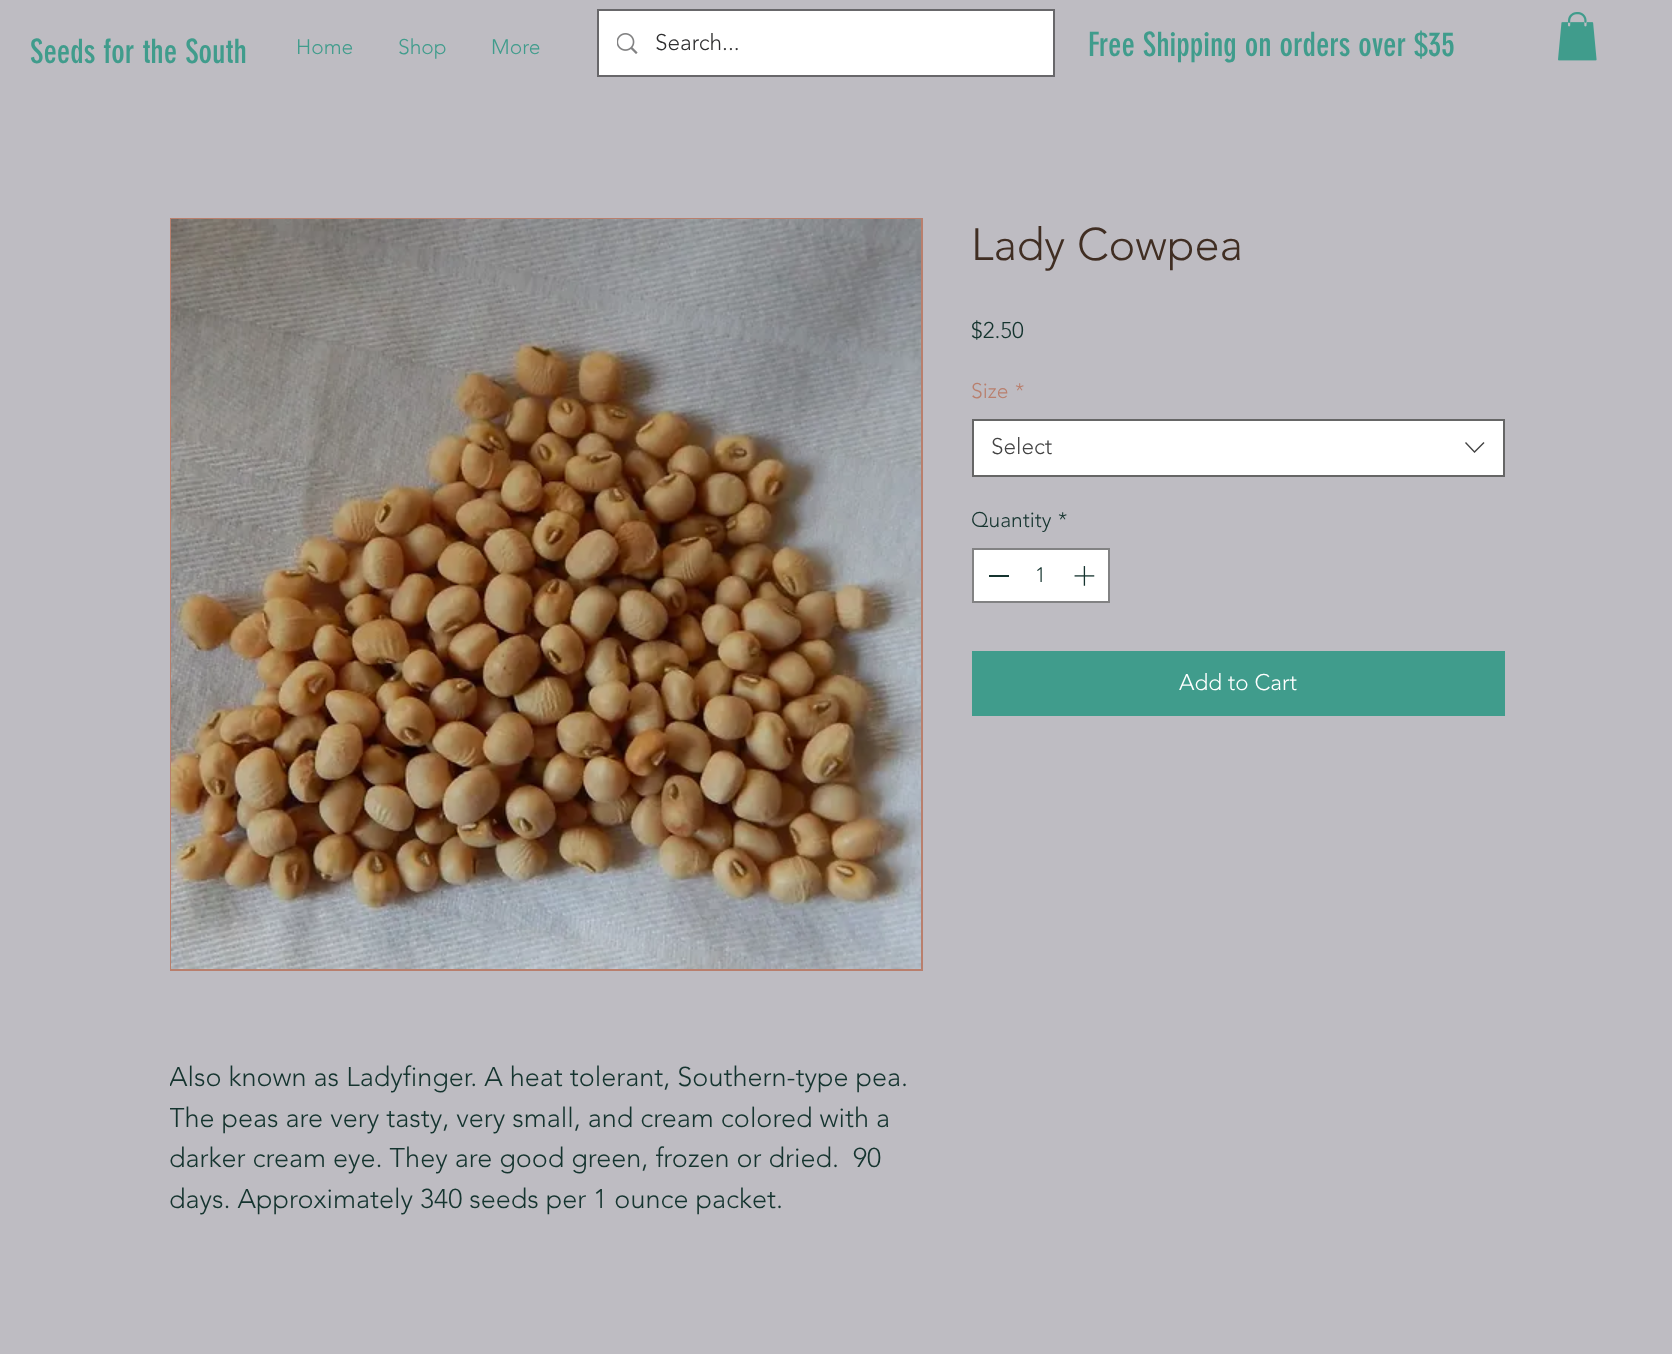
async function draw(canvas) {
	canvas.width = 1672;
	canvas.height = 1354;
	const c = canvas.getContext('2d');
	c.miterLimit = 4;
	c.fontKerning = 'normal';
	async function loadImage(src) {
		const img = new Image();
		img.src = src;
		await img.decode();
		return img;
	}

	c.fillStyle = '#bebcc2';
	c.fillRect(0, 0, 1672, 1354);
	c.font = '33px "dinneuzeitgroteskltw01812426"';
	c.fillStyle = '#409c8c';
	c.fillText('Seeds for the South', 30, 63);
	c.font = '300 21px "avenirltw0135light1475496"';
	for (const [text, x, y] of [
		['Home', 296, 54],
		['Shop', 398, 54],
		['More', 491, 54],
	]) {
		c.fillText(text, x, y);
	}
	c.strokeStyle = '#68676a';
	c.lineWidth = 2;
	c.strokeRect(598, 10, 456, 66);
	c.fillStyle = '#fff';
	c.fillRect(599, 11, 454, 64);
	c.drawImage(await loadImage('img1.png'), 617, 33, 21, 21);
	c.font = '300 22.5px "avenirltw0135light1475496"';
	c.fillStyle = '#2f2f30';
	c.fillText('Search...', 655, 50);
	c.font = '33px "dinneuzeitgroteskltw01812426"';
	c.fillStyle = '#409c8c';
	c.fillText('Free Shipping on orders over $35', 1088, 56);
	c.drawImage(await loadImage('img2.png'), 1558, 12, 39, 49);
	c.font = '300 45px "avenirltw0135light1475496"';
	c.fillStyle = '#402e23';
	c.fillText('Lady Cowpea', 971, 260);
	c.font = '300 22.5px "avenirltw0135light1475496"';
	c.fillStyle = '#15342f';
	c.fillText('$2.50', 971, 338);
	c.font = '300 21px "avenirltw0135light1475496"';
	c.fillStyle = '#b97f6d';
	c.fillText('Size', 971, 398);
	c.fillText('*', 1015, 398);
	c.fillStyle = '#fff';
	c.beginPath();
	c.rect(973, 420, 531, 56);
	c.fill();
	c.strokeStyle = '#666';
	c.stroke();
	c.font = '300 22.5px "avenirltw0135light1475496"';
	c.fillStyle = '#444';
	c.fillText('Select', 991, 454);
	c.beginPath();
	c.moveTo(1483.5, 442);
	c.lineTo(1484.5, 443);
	c.lineTo(1474.5, 453);
	c.lineTo(1465, 443);
	c.lineTo(1466, 442);
	c.lineTo(1474.5, 451);
	c.closePath();
	c.fill('evenodd');
	c.font = '300 21px "avenirltw0135light1475496"';
	c.fillStyle = '#15342f';
	c.fillText('Quantity', 971, 527);
	c.fillText('*', 1058, 527);
	c.fillStyle = '#fff';
	c.beginPath();
	c.rect(973, 549, 136, 53);
	c.fill();
	c.strokeStyle = '#828283';
	c.stroke();
	c.fillStyle = '#15342f';
	c.fillRect(989, 575, 20, 2);
	c.fillText('1', 1035, 582);
	c.drawImage(await loadImage('img3.png'), 1074, 566, 21, 20);
	c.fillStyle = '#409c8c';
	c.fillRect(972, 651, 533, 65);
	c.font = '300 22.5px "avenirltw0135light1475496"';
	c.fillStyle = '#fff';
	c.fillText('Add to Cart', 1179, 690);
	c.strokeStyle = '#b97f6d';
	c.strokeRect(171, 219, 751, 751);
	c.drawImage(await loadImage('img4.png'), 171, 219, 750, 750);
	c.save();
	c.beginPath();
	c.rect(170, 1058, 750, 162);
	c.clip();
	c.font = '300 27px "avenirltw0135light1475496"';
	c.fillStyle = '#15342f';
	c.fillText('Also known as Ladyfinger. A heat tolerant, Southern-type pea.', 169, 1086);
	c.fillText('The peas are very tasty, very small, and cream colored with a', 169, 1127);
	c.restore();
	c.font = '300 27px "avenirltw0135light1475496"';
	c.fillStyle = '#15342f';
	c.fillText('darker cream eye. They are good green, frozen or dried.  90', 169, 1167);
	c.fillText('days. Approximately 340 seeds per 1 ounce packet.', 169, 1208);
}

draw(document.querySelector('canvas'));
